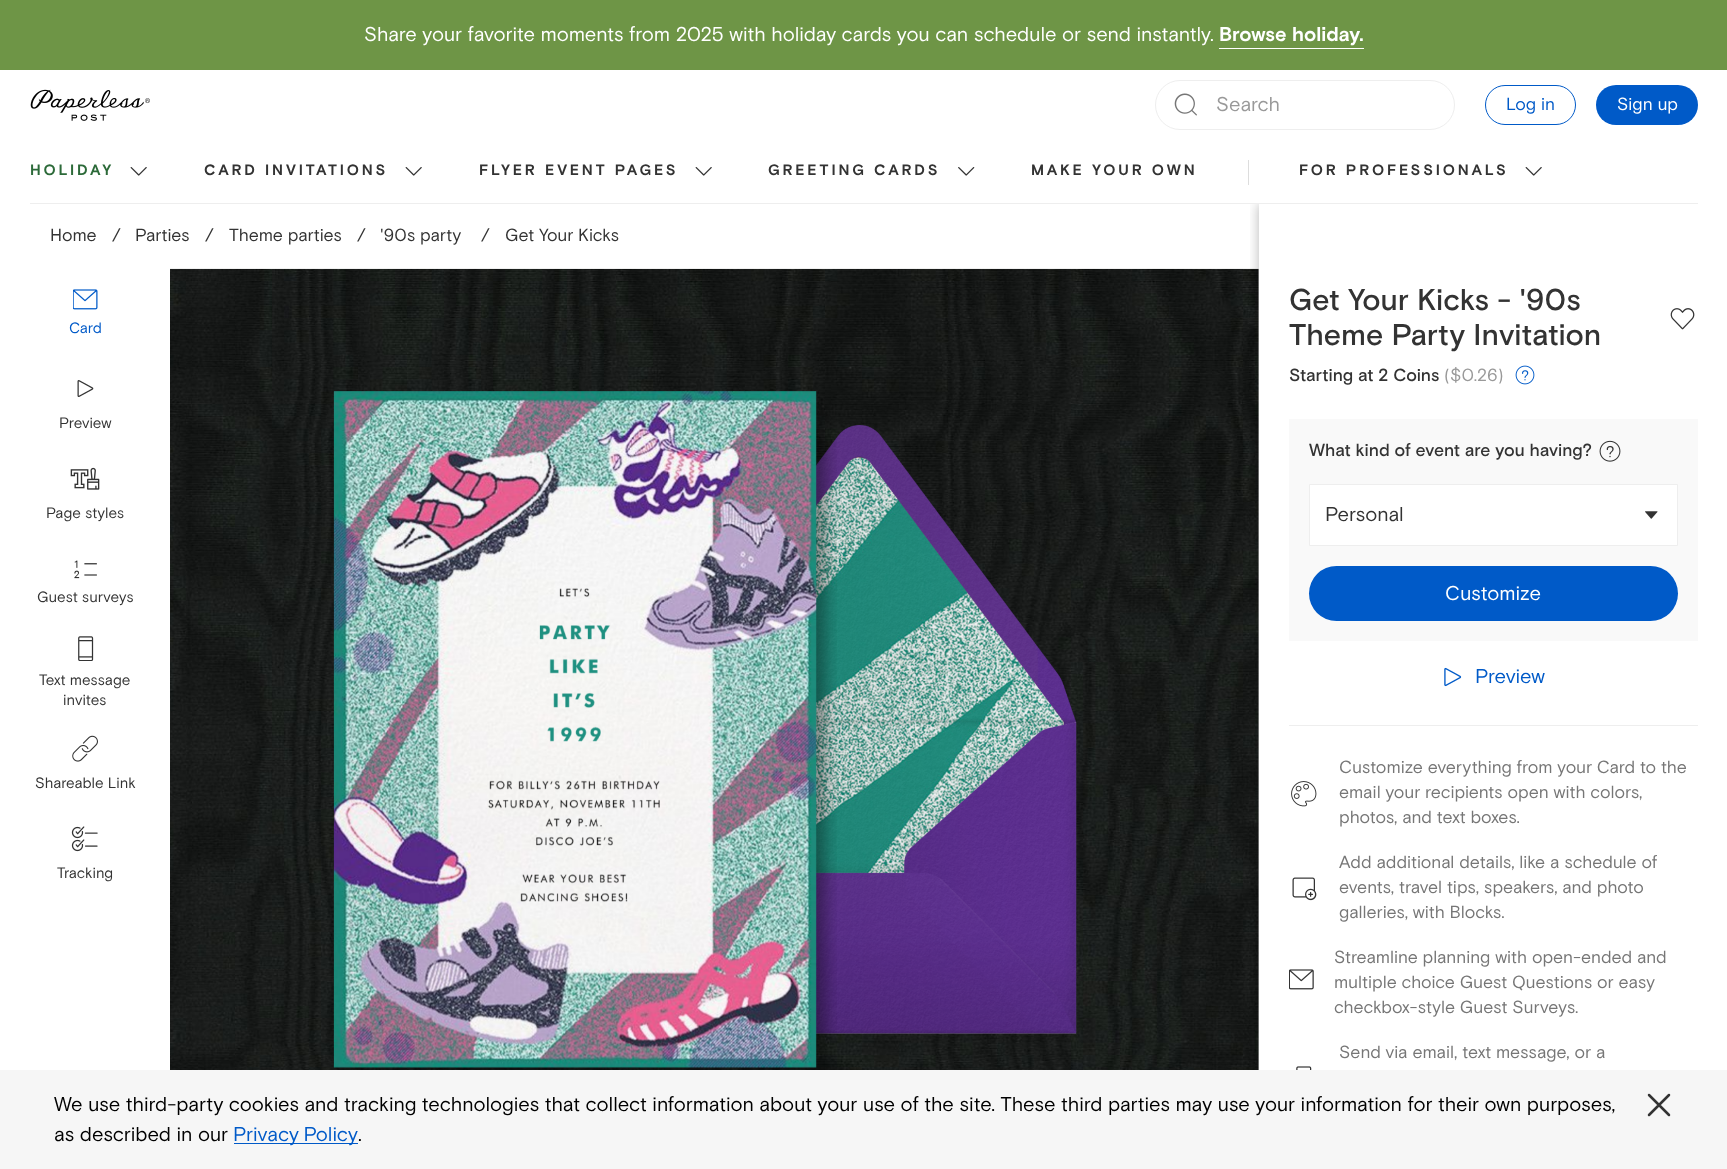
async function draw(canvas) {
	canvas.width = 1727;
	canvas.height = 1169;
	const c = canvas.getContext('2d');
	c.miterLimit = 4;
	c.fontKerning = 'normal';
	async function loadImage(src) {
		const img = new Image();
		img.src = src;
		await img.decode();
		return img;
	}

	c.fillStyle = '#fff';
	c.fillRect(0, 0, 1727, 1169);
	c.fillStyle = '#6e9546';
	c.fillRect(0, 0, 1727, 70);
	c.font = '20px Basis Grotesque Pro';
	c.fillStyle = '#fff';
	c.fillText('Share your favorite moments from 2025 with holiday cards you can schedule or send instantly.', 364, 41);
	c.font = 'bold 20px Basis Grotesque Pro';
	c.fillText('Browse holiday.', 1219, 41);
	c.fillRect(1219, 48, 145, 1);
	c.drawImage(await loadImage('img12.png'), 170, 268, 1089, 802);
	c.save();
	c.beginPath();
	c.rect(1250, 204, 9, 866);
	c.clip();
	c.fillStyle = '#00000040';
	c.filter = 'blur(6px)';
	c.beginPath();
	c.rect(1258, 204, 468, 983);
	c.fill();
	c.filter = 'none';
	c.restore();
	c.fillRect(1250, 194, 477, 10);
	c.drawImage(await loadImage('img1.png'), 30, 89, 120, 32);
	c.beginPath();
	c.roundRect(1155.5, 80.5, 299, 49, 24.5);
	c.strokeStyle = '#eee';
	c.stroke();
	c.drawImage(await loadImage('img2.png'), 1174, 93, 23, 23);
	c.font = '20px Basis Grotesque Pro';
	c.fillStyle = '#999';
	c.fillText('Search', 1216, 111);
	c.beginPath();
	c.roundRect(1485.5, 85.5, 90, 39, 19.5);
	c.strokeStyle = '#005ac8';
	c.stroke();
	c.font = '17.5px Basis Grotesque Pro';
	c.fillStyle = '#005ac8';
	c.fillText('Log in', 1506, 110);
	c.beginPath();
	c.roundRect(1596, 85, 102, 40, 20);
	c.fill();
	c.fillStyle = '#fff';
	c.fillText('Sign up', 1617, 110);
	c.fillStyle = '#eee';
	c.fillRect(30, 203, 1668, 1);
	c.letterSpacing = '3px';
	c.font = 'bold 15px Basis Grotesque Pro';
	c.fillStyle = '#2c6a39';
	c.fillText('HOLIDAY', 30, 175);
	c.drawImage(await loadImage('img3.png'), 130, 167, 17, 9);
	c.fillStyle = '#333';
	c.fillText('CARD INVITATIONS', 204, 175);
	c.drawImage(await loadImage('img3.png'), 405, 167, 17, 9);
	c.fillText('FLYER EVENT PAGES', 479, 175);
	c.drawImage(await loadImage('img3.png'), 695, 167, 17, 9);
	c.fillText('GREETING CARDS', 768, 175);
	c.drawImage(await loadImage('img4.png'), 958, 167, 17, 9);
	c.fillText('MAKE YOUR OWN', 1031, 175);
	c.fillStyle = '#ddd';
	c.fillRect(1248, 160, 1, 25);
	c.fillStyle = '#333';
	c.fillText('FOR PROFESSIONALS', 1299, 175);
	c.drawImage(await loadImage('img3.png'), 1525, 167, 17, 9);
	c.letterSpacing = '0px';
	c.font = '17.5px Basis Grotesque Pro';
	for (const [text, x, y] of [
		['Home', 50, 241],
		['/', 112, 241],
		['Parties', 135, 241],
		['/', 205, 241],
		['Theme parties', 229, 241],
		['/', 357, 241],
		['\'90s party', 380, 241],
		['/', 481, 241],
		['Get Your Kicks', 505, 241],
	]) {
		c.fillText(text, x, y);
	}
	c.drawImage(await loadImage('img5.png'), 73, 289, 25, 21);
	c.font = '15px Basis Grotesque Pro';
	c.fillStyle = '#005ac8';
	c.fillText('Card', 69, 333);
	c.drawImage(await loadImage('img6.png'), 77, 380, 17, 17);
	c.fillStyle = '#333';
	c.fillText('Preview', 59, 428);
	c.drawImage(await loadImage('img7.png'), 70, 467, 30, 23);
	c.fillText('Page styles', 46, 518);
	c.drawImage(await loadImage('img8.png'), 74, 560, 23, 19);
	c.fillText('Guest surveys', 37, 602);
	c.drawImage(await loadImage('img9.png'), 78, 636, 16, 25);
	c.fillText('Text message', 39, 685);
	c.fillText('invites', 63, 705);
	c.drawImage(await loadImage('img10.png'), 72, 735, 26, 27);
	c.fillText('Shareable Link', 35, 788);
	c.drawImage(await loadImage('img11.png'), 71, 826, 27, 26);
	c.fillText('Tracking', 57, 878);
	c.drawImage(await loadImage('img14.png'), 815, 425, 262, 609);
	c.drawImage(await loadImage('img13.png'), 333, 391, 504, 679);
	c.font = '500 30px Basis Grotesque Pro';
	c.fillText('Get Your Kicks - \'90s', 1289, 310);
	c.fillText('Theme Party Invitation', 1289, 345);
	c.drawImage(await loadImage('img15.png'), 1670, 308, 25, 22);
	c.font = '500 17.5px Basis Grotesque Pro';
	c.fillText('Starting at 2 Coins', 1289, 381);
	c.font = '17.5px Basis Grotesque Pro';
	c.fillStyle = '#999';
	c.fillText('($0.26)', 1444, 381);
	c.drawImage(await loadImage('img16.png'), 1515, 365, 20, 20);
	c.fillStyle = '#f9f9f9';
	c.fillRect(1289, 419, 409, 222);
	c.font = '500 17.5px Basis Grotesque Pro';
	c.fillStyle = '#333';
	c.fillText('What kind of event are you having?', 1309, 456);
	c.drawImage(await loadImage('img17.png'), 1599, 440, 22, 22);
	c.fillStyle = '#fff';
	c.beginPath();
	c.rect(1309.5, 484.5, 368, 61);
	c.fill();
	c.strokeStyle = '#eee';
	c.stroke();
	c.font = '20px Basis Grotesque Pro';
	c.fillStyle = '#333';
	c.fillText('Personal', 1325, 521);
	c.drawImage(await loadImage('img18.png'), 1645, 511, 13, 8);
	c.fillStyle = '#005ac8';
	c.beginPath();
	c.roundRect(1309, 566, 369, 55, 27.5);
	c.fill();
	c.fillStyle = '#fff';
	c.fillText('Customize', 1445, 600);
	c.drawImage(await loadImage('img19.png'), 1444, 667, 18, 20);
	c.fillStyle = '#005ac8';
	c.fillText('Preview', 1475, 683);
	c.fillStyle = '#eee';
	c.fillRect(1289, 725, 409, 1);
	c.drawImage(await loadImage('img20.png'), 1291, 781, 26, 26);
	c.font = '17.5px Basis Grotesque Pro';
	c.fillStyle = '#767676';
	for (const [text, x, y] of [
		['Customize everything from your Card to the', 1339, 773],
		['email your recipients open with colors,', 1339, 798],
		['photos, and text boxes.', 1339, 823],
	]) {
		c.fillText(text, x, y);
	}
	c.drawImage(await loadImage('img21.png'), 1292, 877, 25, 24);
	for (const [text, x, y] of [
		['Add additional details, like a schedule of', 1339, 868],
		['events, travel tips, speakers, and photo', 1339, 893],
		['galleries, with Blocks.', 1339, 918],
	]) {
		c.fillText(text, x, y);
	}
	c.drawImage(await loadImage('img22.png'), 1289, 969, 25, 21);
	for (const [text, x, y] of [
		['Streamline planning with open-ended and', 1334, 963],
		['multiple choice Guest Questions or easy', 1334, 988],
		['checkbox-style Guest Surveys.', 1334, 1013],
		['Send via email, text message, or a', 1339, 1058],
	]) {
		c.fillText(text, x, y);
	}
	c.drawImage(await loadImage('img23.png'), 1296, 1066, 16, 4);
	c.fillStyle = '#f6f6f6';
	c.fillRect(0, 1070, 1727, 99);
	c.font = '20px Basis Grotesque Pro';
	c.fillStyle = '#000';
	c.fillText('We use third-party cookies and tracking technologies that collect information about your use of the site. These third parties may use your information for their own purposes,', 54, 1111);
	c.fillText('as described in our', 54, 1141);
	c.fillStyle = '#005ac8';
	c.fillRect(234, 1143, 124, 1);
	c.wordSpacing = '-1px';
	c.fillText('Privacy Policy', 233, 1141);
	c.wordSpacing = '0px';
	c.fillStyle = '#000';
	c.fillText('.', 358, 1141);
	c.beginPath();
	c.moveTo(1649, 1115);
	c.lineTo(1669, 1095);
	c.moveTo(1649, 1095);
	c.lineTo(1669, 1115);
	c.strokeStyle = '#333';
	c.lineWidth = 2.5;
	c.lineCap = 'round';
	c.lineJoin = 'round';
	c.stroke();
}

draw(document.querySelector('canvas'));
